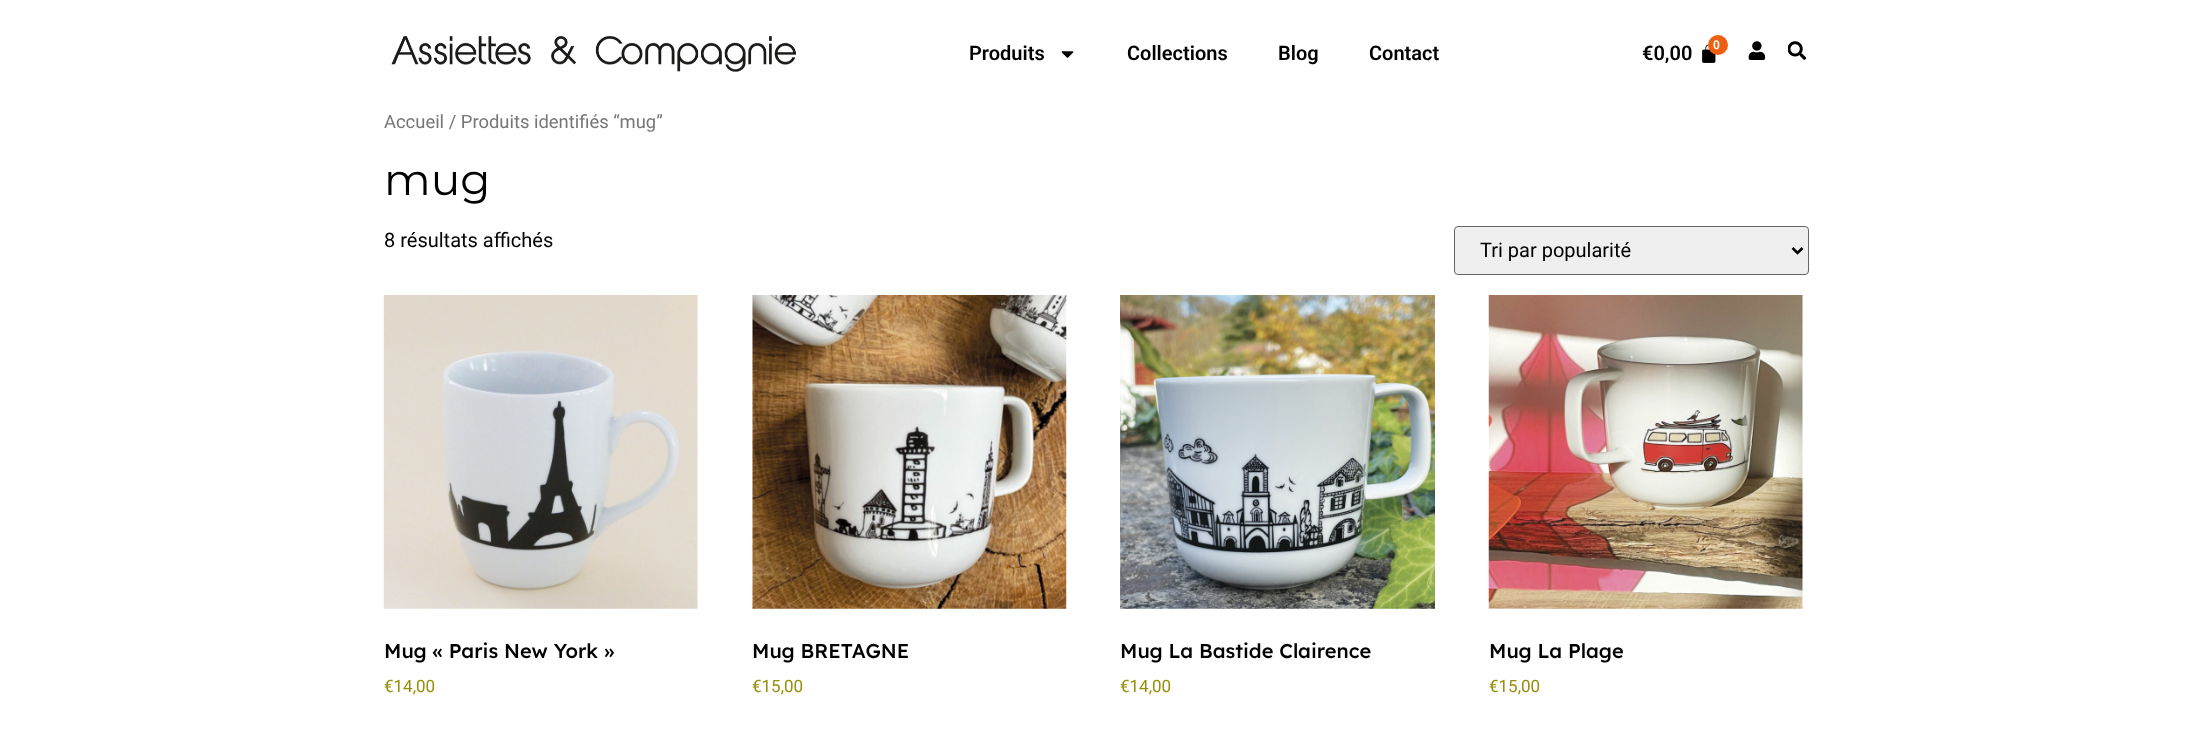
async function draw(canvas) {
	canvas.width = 2192;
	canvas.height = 747;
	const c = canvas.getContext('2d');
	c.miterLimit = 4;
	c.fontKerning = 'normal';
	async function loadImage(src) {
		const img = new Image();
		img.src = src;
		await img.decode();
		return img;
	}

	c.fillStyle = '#fff';
	c.fillRect(0, 0, 2192, 747);
	c.drawImage(await loadImage('img1.png'), 391, 36, 405, 36);
	c.font = '600 20px Roboto';
	c.fillStyle = '#000';
	c.fillText('Produits', 969, 60);
	c.drawImage(await loadImage('img2.png'), 1061, 51, 13, 7);
	for (const [text, x, y] of [
		['Collections', 1127, 60],
		['Blog', 1278, 60],
		['Contact', 1369, 60],
		['€0,00', 1642, 60],
	]) {
		c.fillText(text, x, y);
	}
	c.drawImage(await loadImage('img3.png'), 1702, 44, 14, 19);
	c.fillStyle = '#ef5f11';
	c.beginPath();
	c.arc(1718, 45, 10, 0, 2 * Math.PI);
	c.fill();
	c.font = '600 12px Roboto';
	c.fillStyle = '#fff';
	c.fillText('0', 1713, 49);
	c.drawImage(await loadImage('img4.png'), 1748, 41, 18, 19);
	c.drawImage(await loadImage('img5.png'), 1788, 41, 18, 19);
	c.font = '18.4px Roboto';
	c.fillStyle = '#767676';
	c.fillText('Accueil / Produits identifiés “mug”', 384, 128);
	c.font = '44px Montserrat';
	c.fillStyle = '#000';
	c.fillText('mug', 384, 195);
	c.font = '20px Roboto';
	c.fillText('8 résultats affichés', 384, 247);
	c.fillStyle = '#efefef';
	c.beginPath();
	c.roundRect(1454.5, 226.5, 354, 48, 3.5);
	c.fill();
	c.strokeStyle = '#666';
	c.stroke();
	c.beginPath();
	c.moveTo(1792.5, 248);
	c.lineTo(1797.5, 253);
	c.lineTo(1802.5, 248);
	c.strokeStyle = '#000';
	c.lineWidth = 2.5;
	c.stroke();
	c.fillStyle = '#000';
	c.fillText('Tri par popularité', 1480, 257);
	c.drawImage(await loadImage('img6.png'), 383, 295, 315, 314);
	c.font = '500 20px Lexend';
	c.fillText('Mug « Paris New York »', 384, 658);
	c.font = '17px Roboto';
	c.fillStyle = '#958e09';
	c.fillText('€14,00', 384, 692);
	c.drawImage(await loadImage('img7.png'), 752, 295, 315, 314);
	c.font = '500 20px Lexend';
	c.fillStyle = '#000';
	c.fillText('Mug BRETAGNE', 752, 658);
	c.font = '17px Roboto';
	c.fillStyle = '#958e09';
	c.fillText('€15,00', 752, 692);
	c.drawImage(await loadImage('img8.png'), 1120, 295, 315, 314);
	c.font = '500 20px Lexend';
	c.fillStyle = '#000';
	c.fillText('Mug La Bastide Clairence', 1120, 658);
	c.font = '17px Roboto';
	c.fillStyle = '#958e09';
	c.fillText('€14,00', 1120, 692);
	c.drawImage(await loadImage('img9.png'), 1488, 295, 315, 314);
	c.font = '500 20px Lexend';
	c.fillStyle = '#000';
	c.fillText('Mug La Plage', 1489, 658);
	c.font = '17px Roboto';
	c.fillStyle = '#958e09';
	c.fillText('€15,00', 1489, 692);
}

draw(document.querySelector('canvas'));
